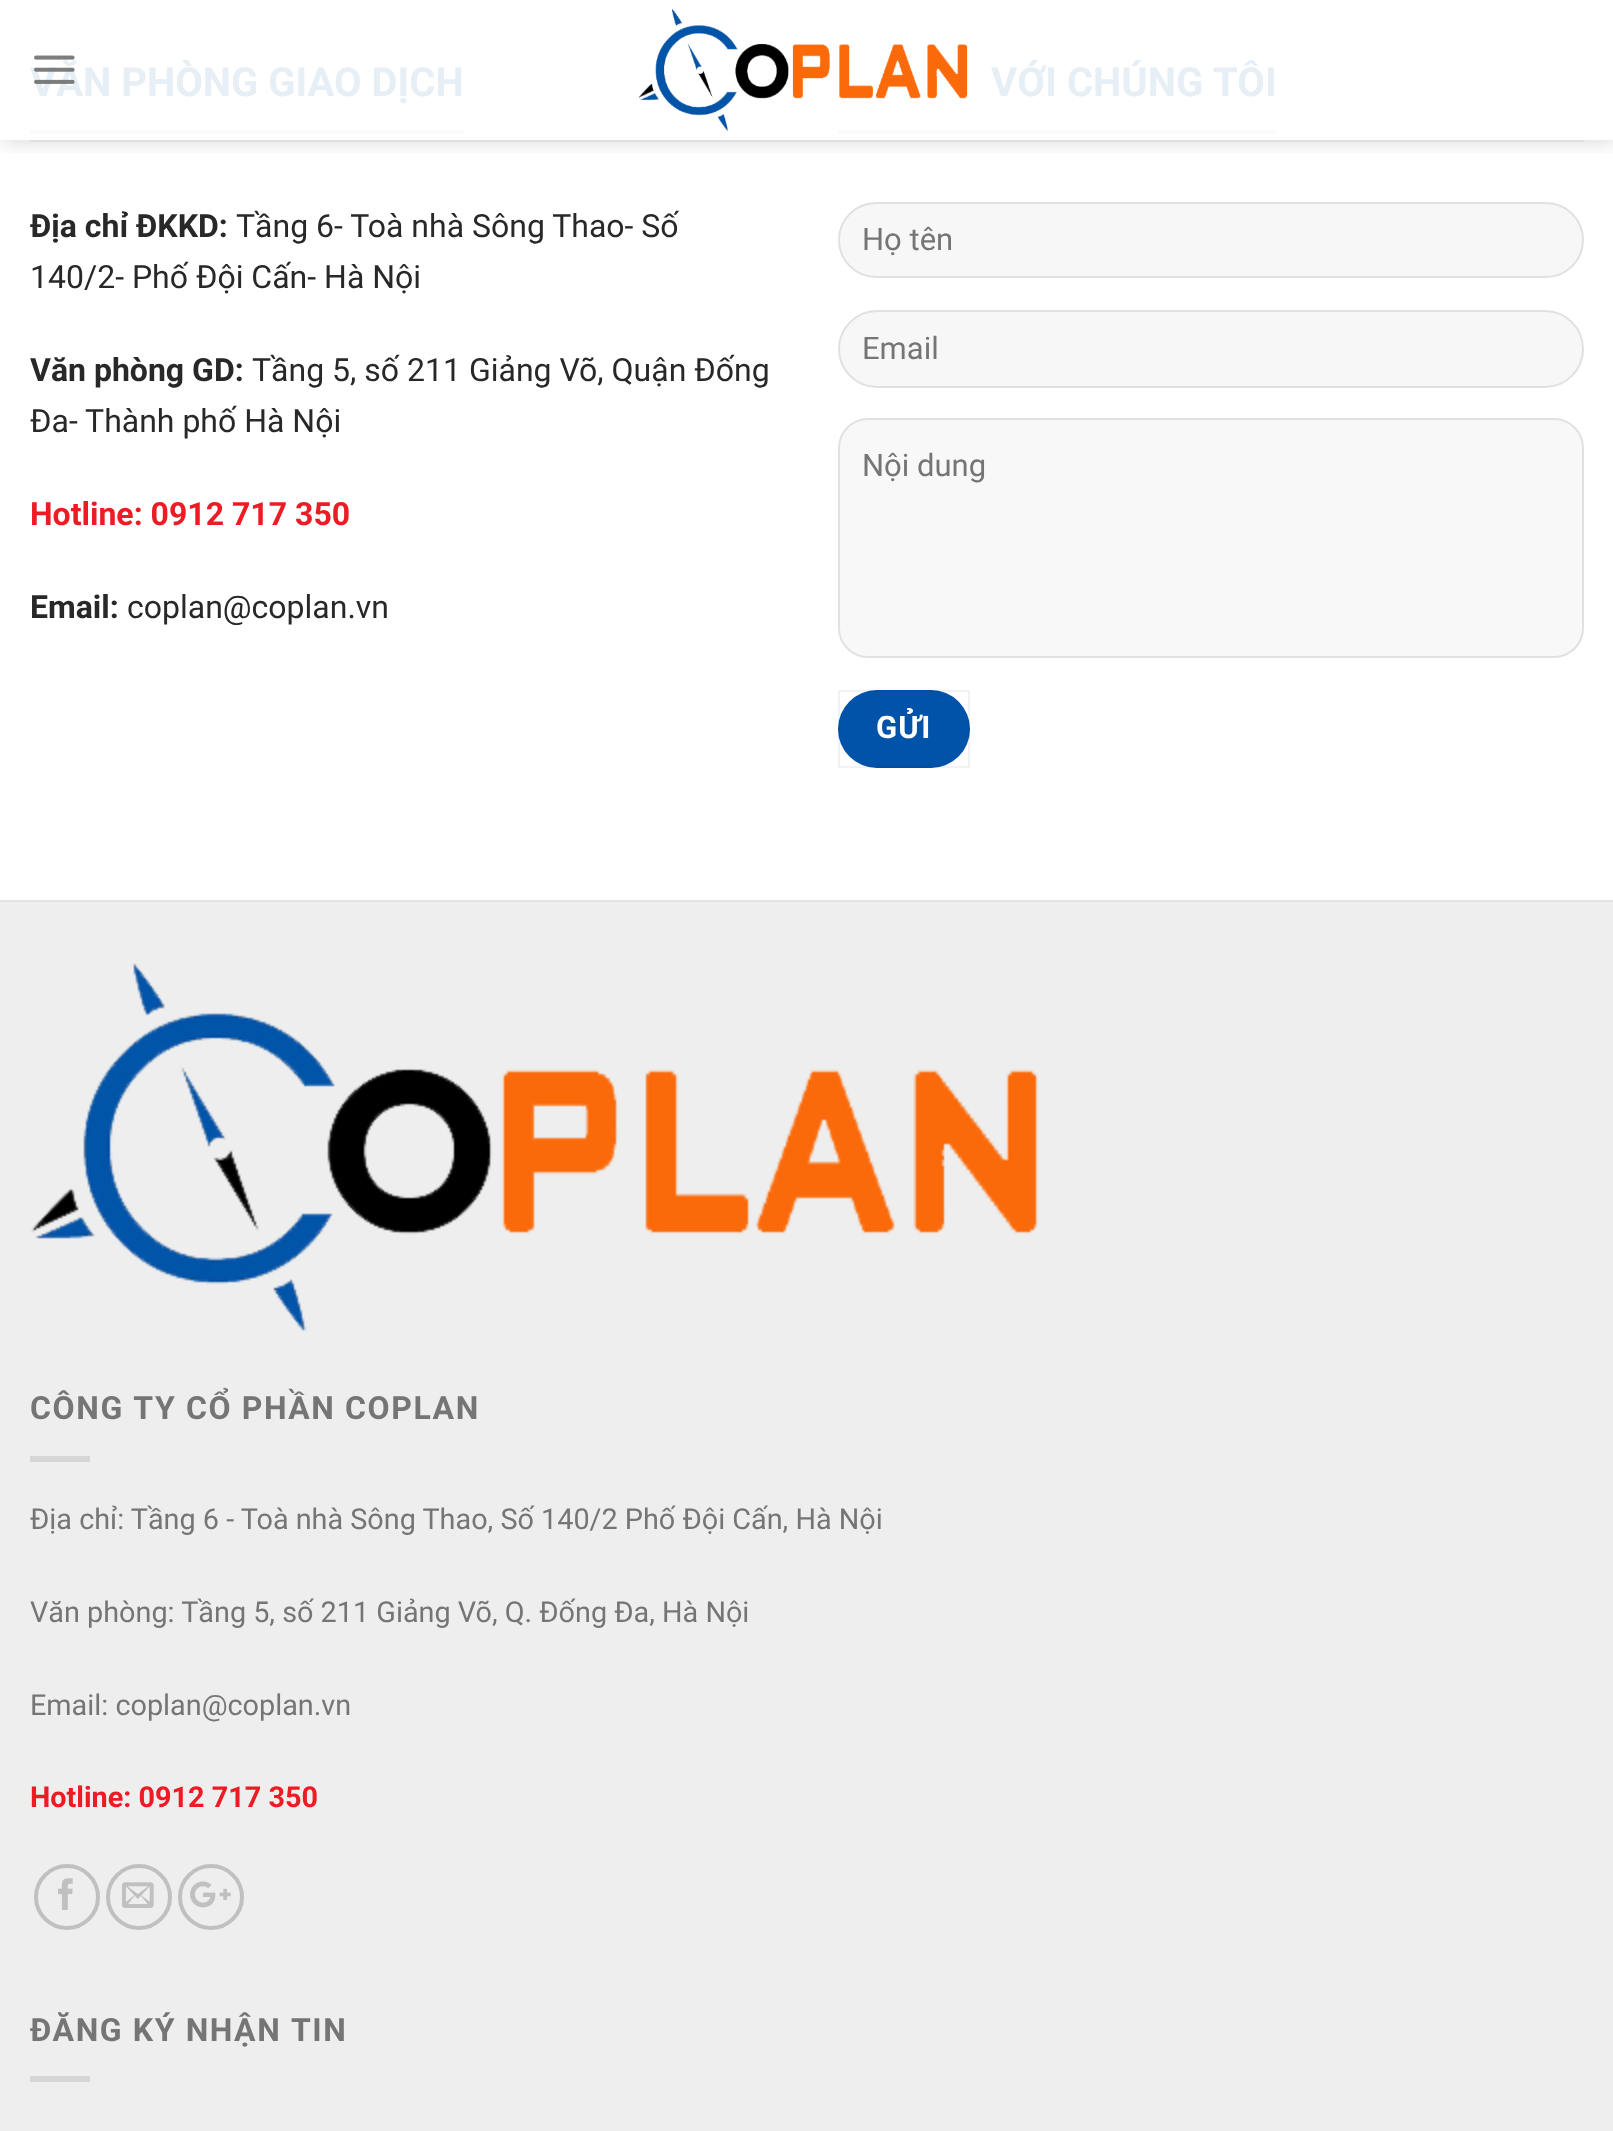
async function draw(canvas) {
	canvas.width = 1613;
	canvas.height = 2131;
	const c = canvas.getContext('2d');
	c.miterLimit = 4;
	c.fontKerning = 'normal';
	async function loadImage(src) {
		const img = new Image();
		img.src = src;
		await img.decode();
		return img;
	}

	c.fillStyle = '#fff';
	c.fillRect(0, 0, 1613, 2131);
	c.fillStyle = '#fbfbfb';
	c.fillRect(30, 130, 434, 4);
	c.fillRect(838, 130, 438, 4);
	c.save();
	c.beginPath();
	c.rect(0, 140, 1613, 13);
	c.clip();
	c.fillStyle = '#00000026';
	c.filter = 'blur(10px)';
	c.beginPath();
	c.rect(2, 2, 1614, 140);
	c.fill();
	c.filter = 'none';
	c.restore();
	c.font = 'bold 40px Roboto';
	c.fillStyle = '#e6eef6';
	c.fillText('VĂN PHÒNG GIAO DỊCH', 30, 96);
	c.drawImage(await loadImage('img1.png'), 34, 55, 41, 29);
	c.drawImage(await loadImage('img2.png'), 638, 8, 330, 123);
	c.fillStyle = '#dfdfdf';
	c.fillRect(30, 140, 1554, 2);
	c.font = 'bold 32px Roboto';
	c.fillStyle = '#282828';
	c.fillText('Địa chỉ ĐKKD:', 30, 237);
	c.font = '32px Roboto';
	c.fillText('Tầng 6- Toà nhà Sông Thao- Số', 236, 237);
	c.fillText('140/2- Phố Đội Cấn- Hà Nội', 30, 288);
	c.font = 'bold 32px Roboto';
	c.fillText('Văn phòng GD:', 30, 381);
	c.font = '32px Roboto';
	c.fillText('Tầng 5, số 211 Giảng Võ, Quận Đống', 252, 381);
	c.fillText('Đa- Thành phố Hà Nội', 30, 432);
	c.font = 'bold 32px Roboto';
	c.fillStyle = '#ed1c24';
	c.fillText('Hotline: 0912 717 350', 30, 525);
	c.fillStyle = '#282828';
	c.fillText('Email:', 30, 618);
	c.font = '32px Roboto';
	c.fillText('coplan@coplan.vn', 127, 618);
	c.font = 'bold 40px Roboto';
	c.fillStyle = '#e6eef6';
	c.fillText('VỚI CHÚNG TÔI', 991, 96);
	c.fillStyle = '#f7f7f7';
	c.beginPath();
	c.roundRect(838, 202, 746, 76, 38);
	c.fill();
	c.beginPath();
	c.roundRect(839, 203, 744, 74, 37);
	c.strokeStyle = '#00000017';
	c.lineWidth = 2;
	c.stroke();
	c.font = '31px Roboto';
	c.fillStyle = '#757575';
	c.fillText('Họ tên', 862, 250);
	c.fillStyle = '#f7f7f7';
	c.beginPath();
	c.roundRect(838, 310, 746, 78, 39);
	c.fill();
	c.beginPath();
	c.roundRect(839, 311, 744, 76, 38);
	c.stroke();
	c.fillStyle = '#757575';
	c.fillText('Email', 862, 359);
	c.fillStyle = '#f8f8f8';
	c.beginPath();
	c.roundRect(838, 418, 746, 240, 30);
	c.fill();
	c.beginPath();
	c.roundRect(839, 419, 744, 238, 29);
	c.stroke();
	c.fillStyle = '#757575';
	c.fillText('Nội dung', 862, 476);
	c.fillStyle = '#0153a9';
	c.beginPath();
	c.roundRect(838, 690, 132, 78, 39);
	c.fill();
	c.strokeStyle = '#0000000d';
	c.strokeRect(839, 691, 130, 76);
	c.letterSpacing = '1px';
	c.font = 'bold 31px Roboto';
	c.fillStyle = '#fff';
	c.fillText('GỬI', 876, 738);
	c.fillStyle = '#eee';
	c.fillRect(0, 902, 1613, 1229);
	c.fillStyle = '#e2e2e2';
	c.fillRect(0, 900, 1613, 2);
	c.drawImage(await loadImage('img3.png'), 31, 963, 1008, 369);
	c.letterSpacing = '1.6px';
	c.font = 'bold 32px Roboto';
	c.fillStyle = '#757575';
	c.fillText('CÔNG TY CỔ PHẦN COPLAN', 30, 1419);
	c.fillStyle = '#d6d6d6';
	c.fillRect(30, 1456, 60, 6);
	c.letterSpacing = '0px';
	c.font = '28.8px Roboto';
	c.fillStyle = '#757575';
	for (const [text, x, y] of [
		['Địa chỉ: Tầng 6 - Toà nhà Sông Thao, Số 140/2 Phố Đội Cấn, Hà Nội', 30, 1529],
		['Văn phòng: Tầng 5, số 211 Giảng Võ, Q. Đống Đa, Hà Nội', 30, 1622],
		['Email: coplan@coplan.vn', 30, 1715],
	]) {
		c.fillText(text, x, y);
	}
	c.font = 'bold 28.8px Roboto';
	c.fillStyle = '#ed1c24';
	c.fillText('Hotline: 0912 717 350', 30, 1807);
	c.beginPath();
	c.arc(67, 1897, 31, 0, 2 * Math.PI);
	c.strokeStyle = '#c0c0c0';
	c.lineWidth = 4;
	c.stroke();
	c.drawImage(await loadImage('img4.png'), 58, 1878, 15, 32);
	c.beginPath();
	c.arc(139, 1897, 31, 0, 2 * Math.PI);
	c.stroke();
	c.drawImage(await loadImage('img5.png'), 122, 1882, 32, 26);
	c.beginPath();
	c.arc(211, 1897, 31, 0, 2 * Math.PI);
	c.stroke();
	c.drawImage(await loadImage('img6.png'), 190, 1881, 41, 27);
	c.letterSpacing = '1.6px';
	c.font = 'bold 32px Roboto';
	c.fillStyle = '#757575';
	c.fillText('ĐĂNG KÝ NHẬN TIN', 30, 2041);
	c.fillStyle = '#d6d6d6';
	c.fillRect(30, 2076, 60, 6);
}

draw(document.querySelector('canvas'));
